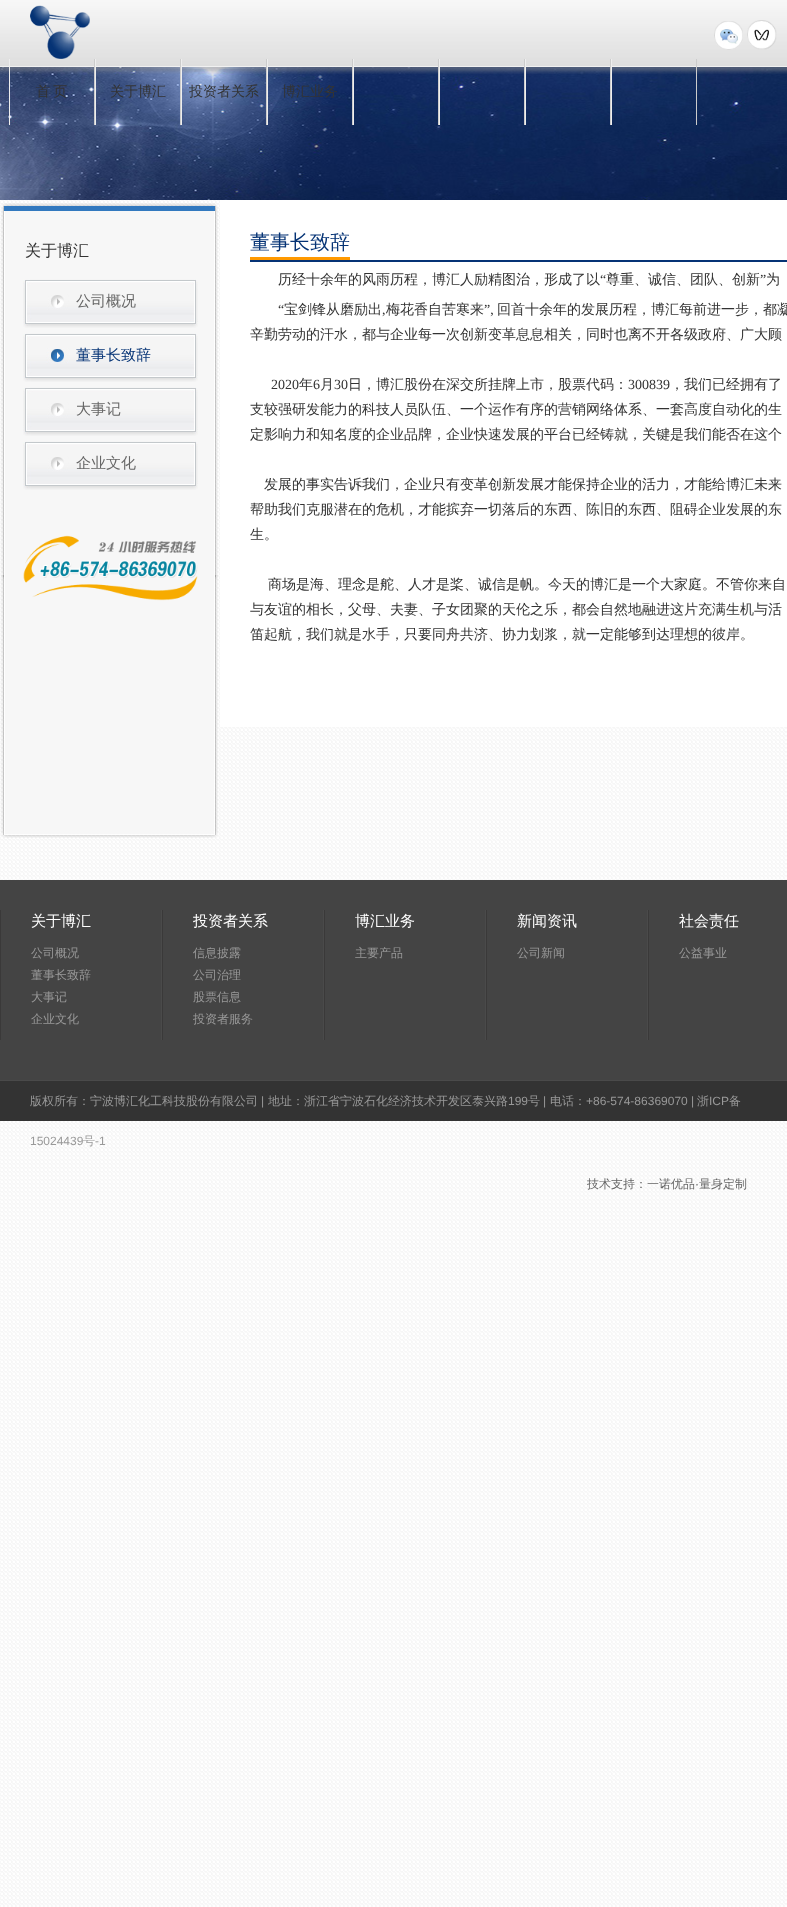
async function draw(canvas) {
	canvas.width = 787;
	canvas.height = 1907;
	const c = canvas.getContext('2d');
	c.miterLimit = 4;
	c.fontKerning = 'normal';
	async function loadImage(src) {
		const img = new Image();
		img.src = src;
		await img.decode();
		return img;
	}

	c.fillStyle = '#fff';
	c.fillRect(0, 0, 787, 1907);
	c.drawImage(await loadImage('img1.png'), 0, 200, 787, 1707);
	c.drawImage(await loadImage('img2.png'), 0, 67, 787, 133);
	c.drawImage(await loadImage('img3.png'), 0, 0, 787, 74);
	c.drawImage(await loadImage('img4.png'), 30, 5, 60, 54);
	c.drawImage(await loadImage('img5.png'), 714, 21, 29, 29);
	c.drawImage(await loadImage('img6.png'), 747, 20, 30, 30);
	c.fillStyle = '#ccc';
	c.fillRect(94, 59, 1, 66);
	c.fillStyle = '#eee';
	c.fillRect(9, 59, 1, 66);
	c.wordSpacing = '-1px';
	c.font = '500 14px WenQuanYi Zen Hei';
	c.fillStyle = '#333';
	c.fillText('首 页', 36, 96);
	c.fillStyle = '#ccc';
	c.fillRect(180, 59, 1, 66);
	c.fillStyle = '#eee';
	c.fillRect(95, 59, 1, 66);
	c.wordSpacing = '0px';
	c.fillStyle = '#333';
	c.fillText('关于博汇', 110, 96);
	c.fillStyle = '#ccc';
	c.fillRect(266, 59, 1, 66);
	c.fillStyle = '#eee';
	c.fillRect(181, 59, 1, 66);
	c.fillStyle = '#333';
	c.fillText('投资者关系', 189, 96);
	c.fillStyle = '#ccc';
	c.fillRect(352, 59, 1, 66);
	c.fillStyle = '#eee';
	c.fillRect(267, 59, 1, 66);
	c.fillStyle = '#333';
	c.fillText('博汇业务', 282, 96);
	for (const [x, y, w, h, color] of [
		[438, 59, 1, 66, '#ccc'],
		[353, 59, 1, 66, '#eee'],
		[524, 59, 1, 66, '#ccc'],
		[439, 59, 1, 66, '#eee'],
		[610, 59, 1, 66, '#ccc'],
		[525, 59, 1, 66, '#eee'],
		[696, 59, 1, 66, '#ccc'],
		[611, 59, 1, 66, '#eee'],
	]) {
		c.fillStyle = color;
		c.fillRect(x, y, w, h);
	}
	c.drawImage(await loadImage('img7.png'), 1, 203, 217, 635);
	c.font = '500 16px WenQuanYi Zen Hei';
	c.fillStyle = '#333';
	c.fillText('关于博汇', 25, 256);
	c.drawImage(await loadImage('img8.png'), 23, 279, 175, 49);
	c.font = '500 15px WenQuanYi Zen Hei';
	c.fillStyle = '#666';
	c.fillText('公司概况', 76, 306);
	c.drawImage(await loadImage('img9.png'), 23, 333, 175, 49);
	c.fillStyle = '#053375';
	c.fillText('董事长致辞', 76, 360);
	c.drawImage(await loadImage('img8.png'), 23, 387, 175, 49);
	c.fillStyle = '#666';
	c.fillText('大事记', 76, 414);
	c.drawImage(await loadImage('img8.png'), 23, 441, 175, 49);
	c.fillText('企业文化', 76, 468);
	c.drawImage(await loadImage('img10.png'), 23, 535, 175, 66);
	c.fillStyle = '#fff';
	c.fillRect(220, 200, 567, 527);
	c.fillStyle = '#053375';
	c.fillRect(250, 260, 537, 2);
	c.font = '500 20px WenQuanYi Zen Hei';
	c.fillText('董事长致辞', 250, 249);
	c.fillStyle = '#f90';
	c.fillRect(250, 257, 100, 3);
	c.font = '500 14px WenQuanYi Zen Hei';
	c.fillStyle = '#333';
	c.fillText('历经十余年的风雨历程，博汇人励精图治，形成了以', 278, 284);
	c.font = '14px Liberation Serif';
	c.fillText('“', 600, 284);
	c.font = '500 14px WenQuanYi Zen Hei';
	c.fillText('尊重、诚信、团队、创新', 606, 284);
	c.font = '14px Liberation Serif';
	c.fillText('”', 760, 284);
	c.font = '500 14px WenQuanYi Zen Hei';
	c.fillText('为', 766, 284);
	c.font = '14px Liberation Serif';
	c.fillText('“', 278, 314);
	c.font = '500 14px WenQuanYi Zen Hei';
	c.fillText('宝剑锋从磨励出', 284, 314);
	c.font = '14px Liberation Serif';
	c.fillText(',', 382, 314);
	c.font = '500 14px WenQuanYi Zen Hei';
	c.fillText('梅花香自苦寒来', 386, 314);
	c.font = '14px Liberation Serif';
	c.fillText('”,', 484, 314);
	c.font = '500 14px WenQuanYi Zen Hei';
	c.fillText('回首十余年的发展历程，博汇每前进一步，都凝', 497, 314);
	c.fillText('辛勤劳动的汗水，都与企业每一次创新变革息息相关，同时也离不开各级政府、广大顾', 250, 339);
	c.font = '14px Liberation Serif';
	c.fillText('2020', 271, 389);
	c.font = '500 14px WenQuanYi Zen Hei';
	c.fillText('年', 299, 389);
	c.font = '14px Liberation Serif';
	c.fillText('6', 313, 389);
	c.font = '500 14px WenQuanYi Zen Hei';
	c.fillText('月', 320, 389);
	c.font = '14px Liberation Serif';
	c.fillText('30', 334, 389);
	c.font = '500 14px WenQuanYi Zen Hei';
	c.fillText('日，博汇股份在深交所挂牌上市，股票代码：', 348, 389);
	c.font = '14px Liberation Serif';
	c.fillText('300839', 628, 389);
	c.font = '500 14px WenQuanYi Zen Hei';
	for (const [text, x, y] of [
		['，我们已经拥有了', 670, 389],
		['支较强研发能力的科技人员队伍、一个运作有序的营销网络体系、一套高度自动化的生', 250, 414],
		['定影响力和知名度的企业品牌，企业快速发展的平台已经铸就，关键是我们能否在这个', 250, 439],
		['发展的事实告诉我们，企业只有变革创新发展才能保持企业的活力，才能给博汇未来', 264, 489],
		['帮助我们克服潜在的危机，才能摈弃一切落后的东西、陈旧的东西、阻碍企业发展的东', 250, 514],
		['生。', 250, 539],
		['商场是海、理念是舵、人才是桨、诚信是帆。今天的博汇是一个大家庭。不管你来自', 268, 589],
		['与友谊的相长，父母、夫妻、子女团聚的天伦之乐，都会自然地融进这片充满生机与活', 250, 614],
		['笛起航，我们就是水手，只要同舟共济、协力划浆，就一定能够到达理想的彼岸。', 250, 639],
	]) {
		c.fillText(text, x, y);
	}
	for (const [x, y, w, h, color] of [
		[0, 880, 787, 200, '#444'],
		[0, 1080, 787, 1, '#4a4a4a'],
		[161, 910, 1, 130, '#4a4a4a'],
		[0, 910, 1, 130, '#3a3939'],
	]) {
		c.fillStyle = color;
		c.fillRect(x, y, w, h);
	}
	c.font = '500 15px WenQuanYi Zen Hei';
	c.fillStyle = '#fff';
	c.fillText('关于博汇', 31, 926);
	c.font = '500 12px WenQuanYi Zen Hei';
	c.fillStyle = '#999';
	for (const [text, x, y] of [
		['公司概况', 31, 957],
		['董事长致辞', 31, 979],
		['大事记', 31, 1001],
		['企业文化', 31, 1023],
	]) {
		c.fillText(text, x, y);
	}
	c.fillStyle = '#4a4a4a';
	c.fillRect(323, 910, 1, 130);
	c.fillStyle = '#3a3939';
	c.fillRect(162, 910, 1, 130);
	c.font = '500 15px WenQuanYi Zen Hei';
	c.fillStyle = '#fff';
	c.fillText('投资者关系', 193, 926);
	c.font = '500 12px WenQuanYi Zen Hei';
	c.fillStyle = '#999';
	for (const [text, x, y] of [
		['信息披露', 193, 957],
		['公司治理', 193, 979],
		['股票信息', 193, 1001],
		['投资者服务', 193, 1023],
	]) {
		c.fillText(text, x, y);
	}
	c.fillStyle = '#4a4a4a';
	c.fillRect(485, 910, 1, 130);
	c.fillStyle = '#3a3939';
	c.fillRect(324, 910, 1, 130);
	c.font = '500 15px WenQuanYi Zen Hei';
	c.fillStyle = '#fff';
	c.fillText('博汇业务', 355, 926);
	c.font = '500 12px WenQuanYi Zen Hei';
	c.fillStyle = '#999';
	c.fillText('主要产品', 355, 957);
	c.fillStyle = '#4a4a4a';
	c.fillRect(647, 910, 1, 130);
	c.fillStyle = '#3a3939';
	c.fillRect(486, 910, 1, 130);
	c.font = '500 15px WenQuanYi Zen Hei';
	c.fillStyle = '#fff';
	c.fillText('新闻资讯', 517, 926);
	c.font = '500 12px WenQuanYi Zen Hei';
	c.fillStyle = '#999';
	c.fillText('公司新闻', 517, 957);
	c.fillStyle = '#3a3939';
	c.fillRect(648, 910, 1, 130);
	c.font = '500 15px WenQuanYi Zen Hei';
	c.fillStyle = '#fff';
	c.fillText('社会责任', 679, 926);
	c.font = '500 12px WenQuanYi Zen Hei';
	c.fillStyle = '#999';
	c.fillText('公益事业', 679, 957);
	c.fillStyle = '#333';
	c.fillRect(0, 1081, 787, 40);
	c.fillStyle = '#999';
	c.fillText('版权所有：宁波博汇化工科技股份有限公司', 30, 1105);
	c.font = '12px Liberation Sans';
	c.fillText('|', 261, 1105);
	c.font = '500 12px WenQuanYi Zen Hei';
	c.fillText('地址：浙江省宁波石化经济技术开发区泰兴路', 268, 1105);
	c.font = '12px Liberation Sans';
	c.fillText('199', 508, 1105);
	c.font = '500 12px WenQuanYi Zen Hei';
	c.fillText('号', 528, 1105);
	c.font = '12px Liberation Sans';
	c.fillText('|', 543, 1105);
	c.font = '500 12px WenQuanYi Zen Hei';
	c.fillText('电话：', 550, 1105);
	c.font = '12px Liberation Sans';
	c.fillText('+86-574-86369070 |', 586, 1105);
	c.font = '500 12px WenQuanYi Zen Hei';
	c.fillText('浙', 697, 1105);
	c.font = '12px Liberation Sans';
	c.fillText('ICP', 709, 1105);
	c.font = '500 12px WenQuanYi Zen Hei';
	c.fillText('备', 729, 1105);
	c.font = '12px Liberation Sans';
	c.fillText('15024439', 30, 1145);
	c.font = '500 12px WenQuanYi Zen Hei';
	c.fillText('号', 83, 1145);
	c.font = '12px Liberation Sans';
	c.fillText('-1', 95, 1145);
	c.font = '500 12px WenQuanYi Zen Hei';
	c.fillStyle = '#666';
	c.fillText('技术支持：一诺优品', 587, 1188);
	c.font = '12px Liberation Sans';
	c.fillText('·', 695, 1188);
	c.font = '500 12px WenQuanYi Zen Hei';
	c.fillText('量身定制', 699, 1188);
}

draw(document.querySelector('canvas'));
